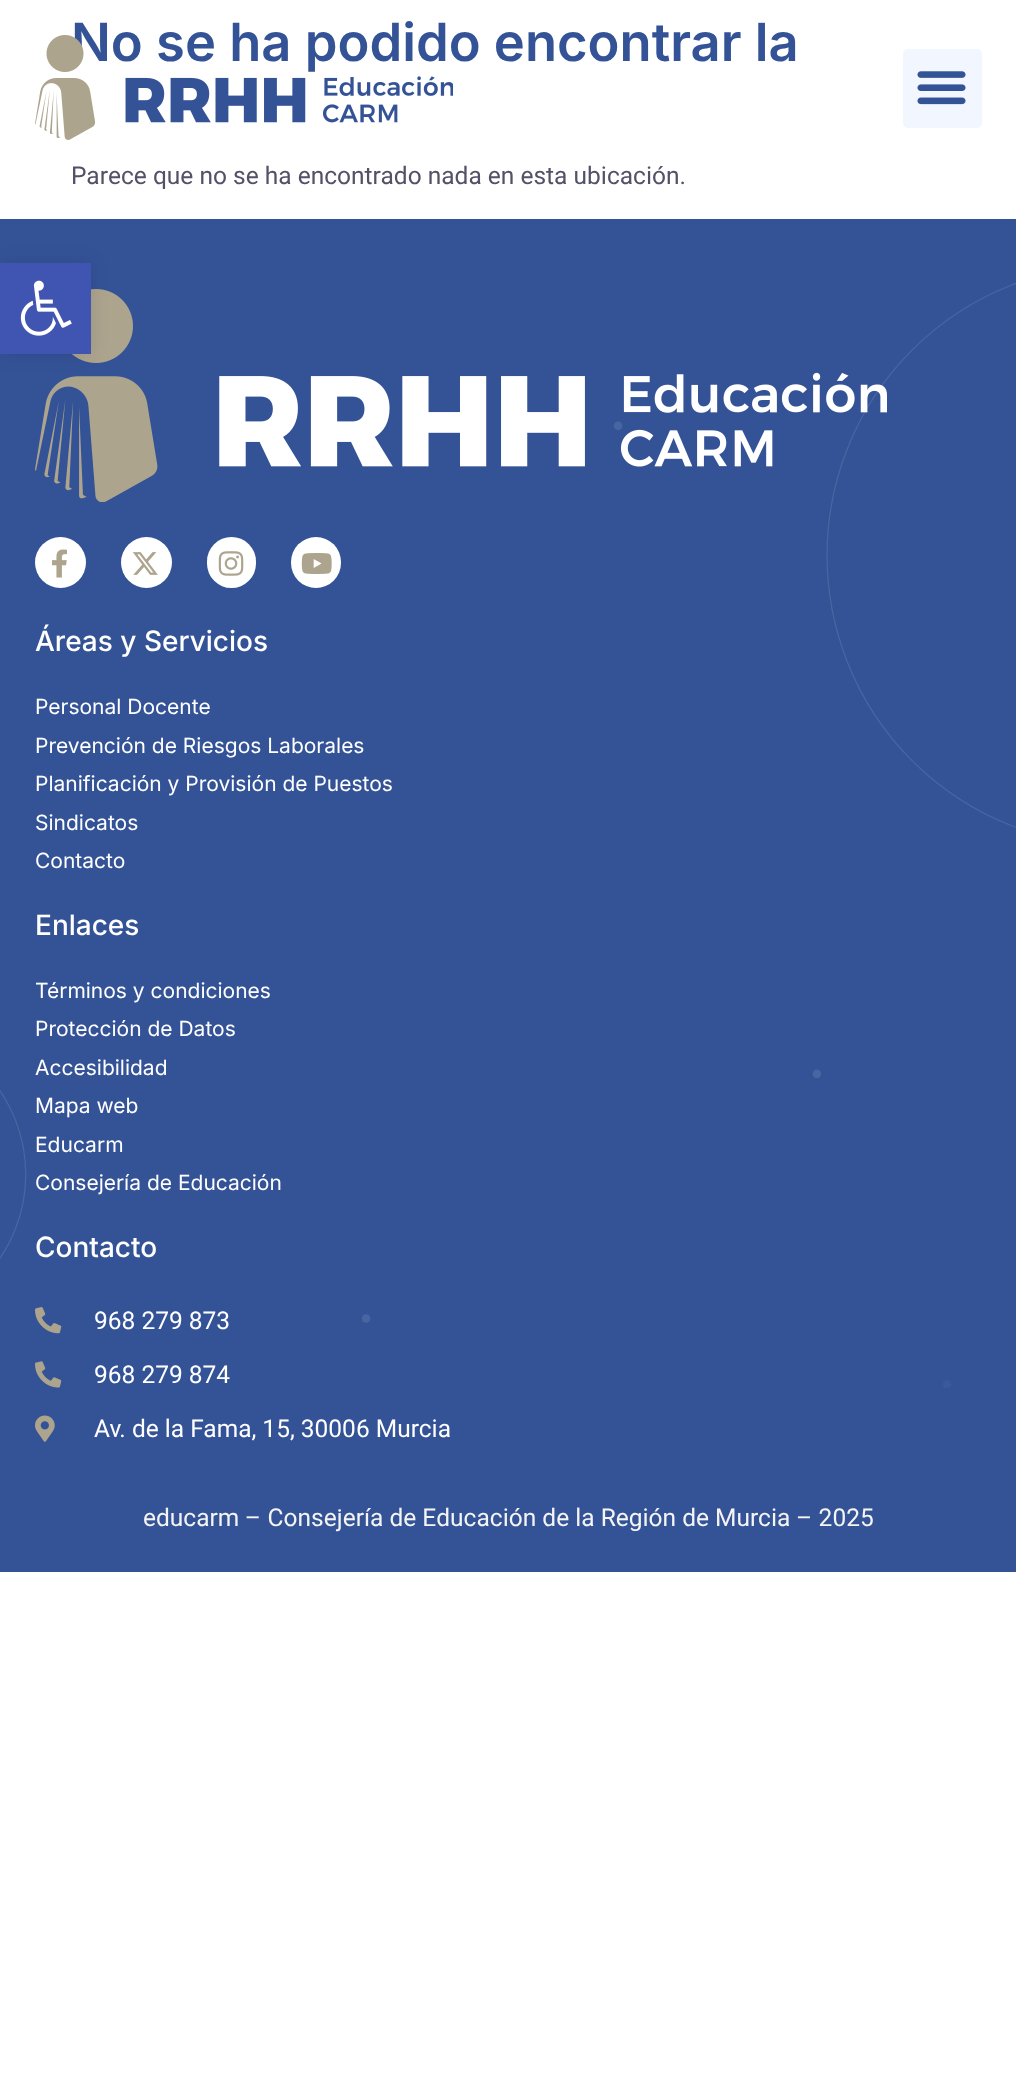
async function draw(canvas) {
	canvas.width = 1016;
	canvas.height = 2074;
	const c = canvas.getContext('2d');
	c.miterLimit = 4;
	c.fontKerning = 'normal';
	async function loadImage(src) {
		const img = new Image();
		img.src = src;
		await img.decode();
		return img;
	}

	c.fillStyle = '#fff';
	c.fillRect(0, 0, 1016, 2074);
	c.font = '600 52.5px Inter';
	c.fillStyle = '#345397';
	c.fillText('No se ha podido encontrar la', 71, 61);
	c.font = '24.5px Heebo';
	c.fillStyle = '#525168';
	c.fillText('Parece que no se ha encontrado nada en esta ubicación.', 71, 184);
	c.drawImage(await loadImage('img1.png'), 35, 35, 418, 105);
	c.fillStyle = '#f2f6ff';
	c.beginPath();
	c.roundRect(903, 49, 79, 79, 5);
	c.fill();
	c.drawImage(await loadImage('img2.png'), 917, 71, 49, 34);
	c.fillStyle = '#345397';
	c.fillRect(0, 219, 1016, 1353);
	c.drawImage(await loadImage('img4.png'), 0, 283, 1016, 1105);
	c.drawImage(await loadImage('img5.png'), 35, 289, 852, 213);
	c.fillStyle = '#0000001a';
	c.filter = 'blur(9px)';
	c.beginPath();
	c.rect(0, 263, 91, 91);
	c.fill();
	c.filter = 'none';
	c.fillStyle = '#4054b2';
	c.fillRect(0, 263, 91, 91);
	c.drawImage(await loadImage('img3.png'), 20, 280, 52, 56);
	c.fillStyle = '#fff';
	c.beginPath();
	c.arc(60.5, 562.5, 25.5, 0, 2 * Math.PI);
	c.fill();
	c.drawImage(await loadImage('img6.png'), 52, 549, 15, 29);
	c.beginPath();
	c.arc(146.5, 562.5, 25.5, 0, 2 * Math.PI);
	c.fill();
	c.drawImage(await loadImage('img7.png'), 132, 552, 26, 23);
	c.beginPath();
	c.roundRect(207, 537, 49, 51, 24.5);
	c.fill();
	c.drawImage(await loadImage('img8.png'), 218, 551, 26, 25);
	c.beginPath();
	c.roundRect(291, 537, 50, 51, 25);
	c.fill();
	c.drawImage(await loadImage('img9.png'), 301, 553, 31, 21);
	c.font = '500 28px Inter';
	c.fillText('Áreas y Servicios', 35, 651);
	c.font = '21px Inter';
	for (const [text, x, y] of [
		['Personal Docente', 35, 714],
		['Prevención de Riesgos Laborales', 35, 753],
		['Planificación y Provisión de Puestos', 35, 791],
		['Sindicatos', 35, 830],
		['Contacto', 35, 868],
	]) {
		c.fillText(text, x, y);
	}
	c.font = '500 28px Inter';
	c.fillText('Enlaces', 35, 935);
	c.font = '21px Inter';
	for (const [text, x, y] of [
		['Términos y condiciones', 35, 998],
		['Protección de Datos', 35, 1036],
		['Accesibilidad', 35, 1075],
		['Mapa web', 35, 1113],
		['Educarm', 35, 1152],
		['Consejería de Educación', 35, 1190],
	]) {
		c.fillText(text, x, y);
	}
	c.font = '500 28px Inter';
	c.fillText('Contacto', 35, 1257);
	c.drawImage(await loadImage('img10.png'), 35, 1307, 27, 27);
	c.font = '24.5px Heebo';
	c.fillText('968 279 873', 94, 1329);
	c.drawImage(await loadImage('img11.png'), 35, 1361, 27, 27);
	c.fillText('968 279 874', 94, 1383);
	c.drawImage(await loadImage('img12.png'), 35, 1415, 20, 27);
	c.fillText('Av. de la Fama, 15, 30006 Murcia', 94, 1437);
	c.fillStyle = '#f4f4f4';
	c.fillText('educarm – Consejería de Educación de la Región de Murcia – 2025', 143, 1526);
}

draw(document.querySelector('canvas'));
